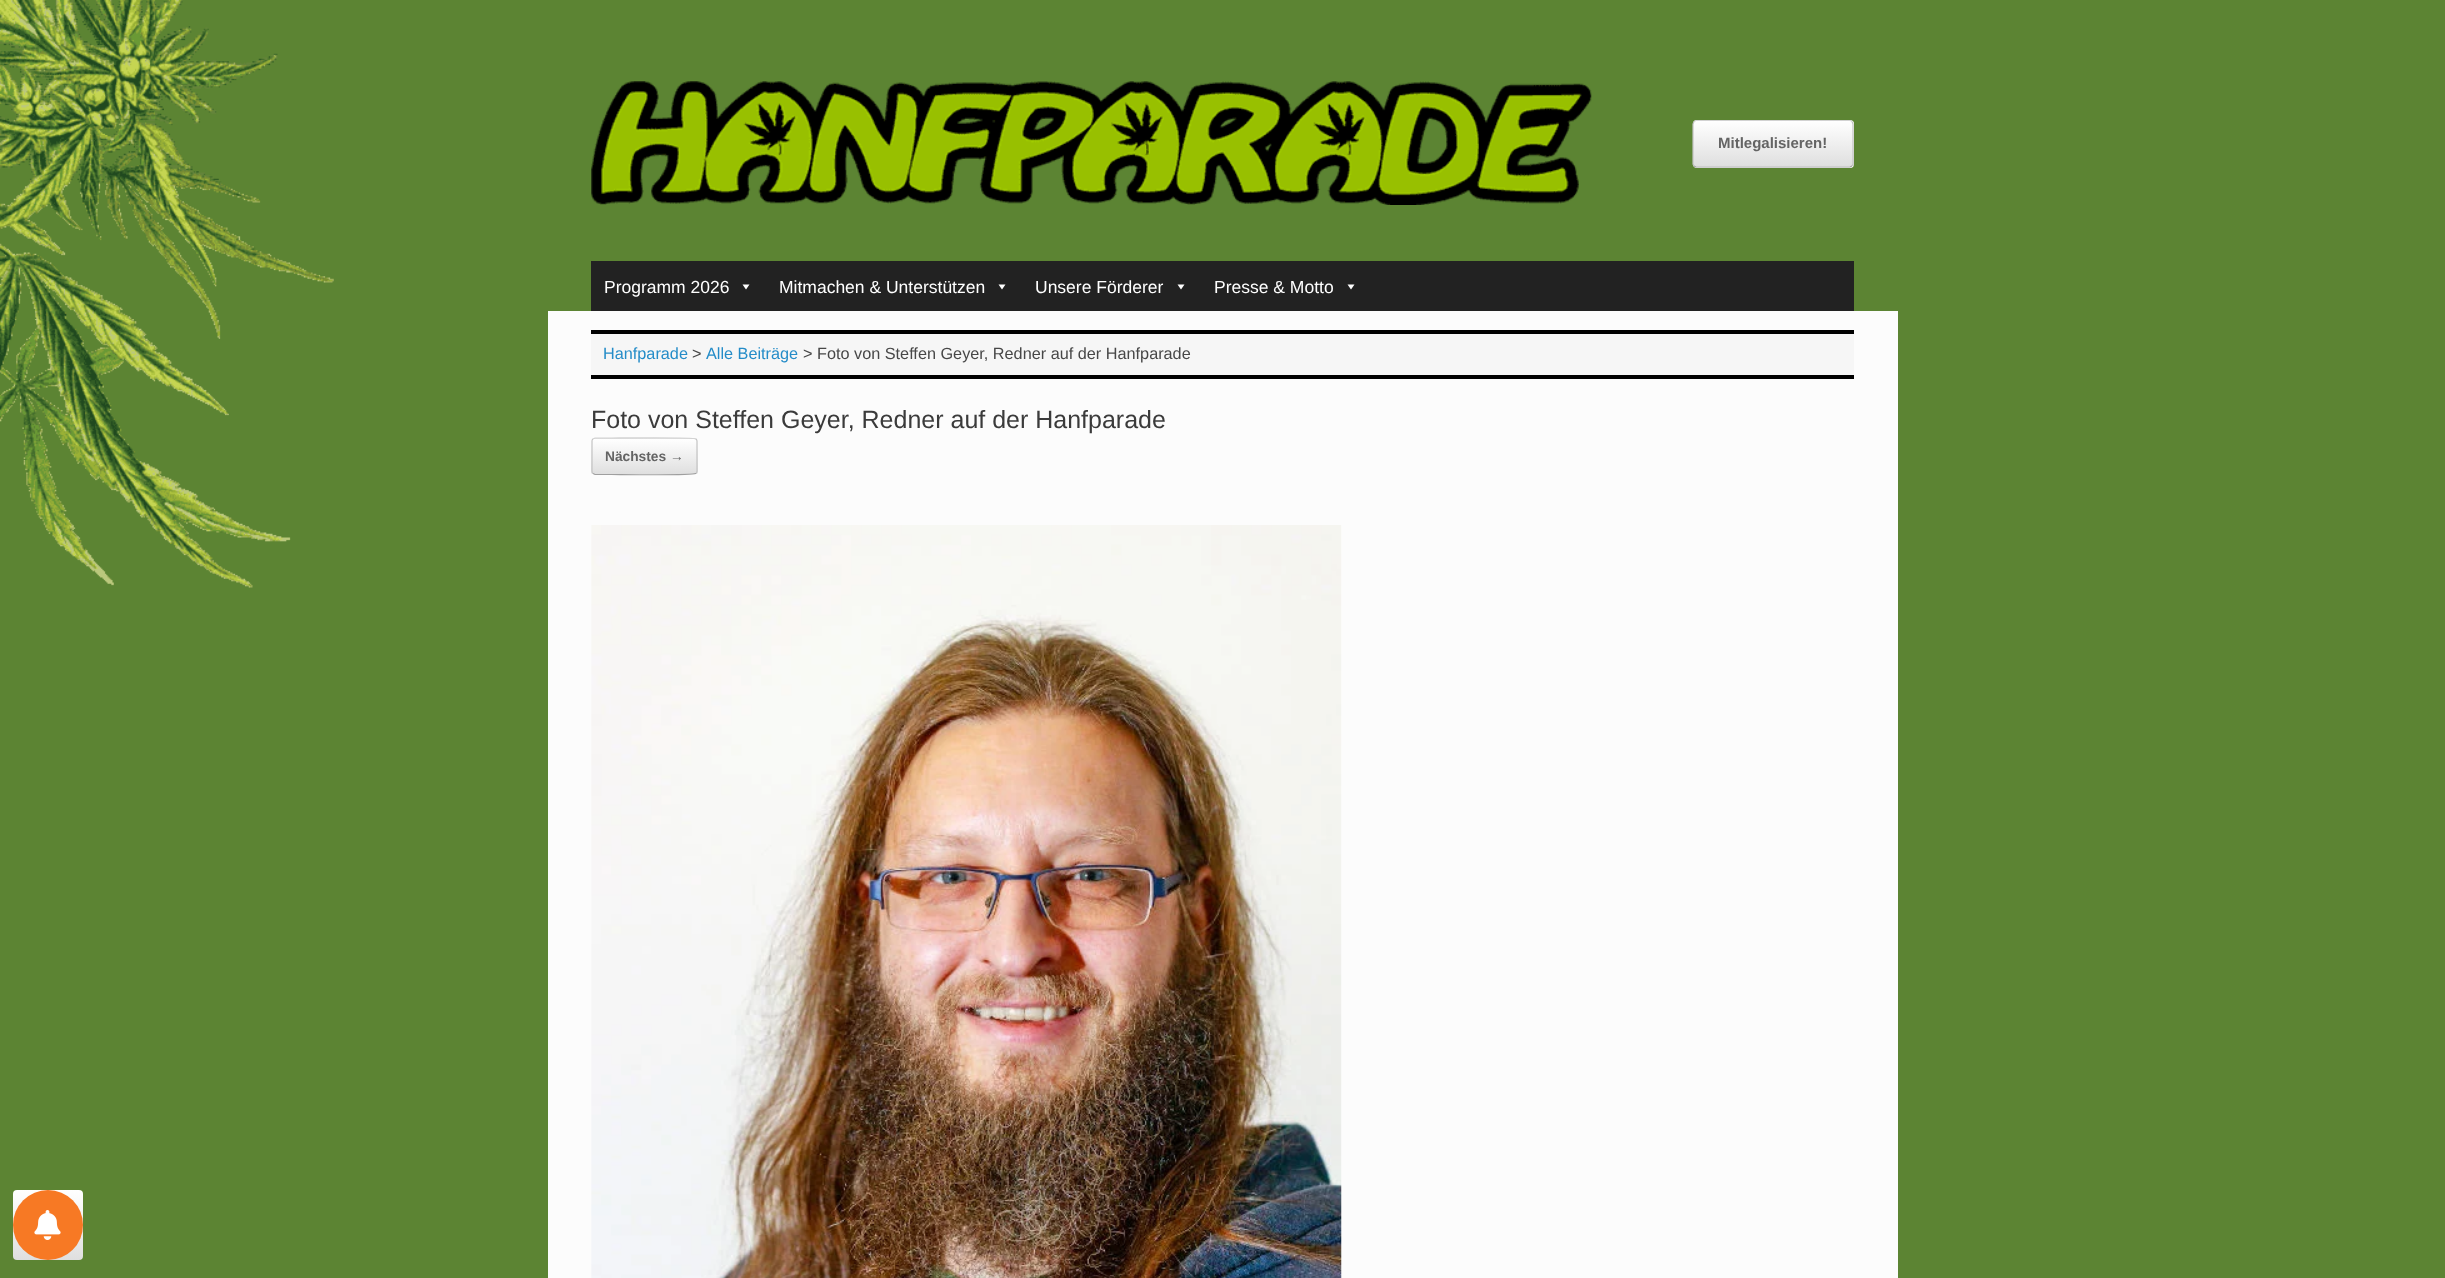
async function draw(canvas) {
	canvas.width = 2445;
	canvas.height = 1278;
	const c = canvas.getContext('2d');
	c.miterLimit = 4;
	c.fontKerning = 'normal';
	async function loadImage(src) {
		const img = new Image();
		img.src = src;
		await img.decode();
		return img;
	}
	let gradient;

	c.fillStyle = '#5c8433';
	c.fillRect(0, 0, 2445, 1278);
	c.drawImage(await loadImage('img1.png'), 0, 0, 334, 588);
	c.drawImage(await loadImage('img2.png'), 591, 81, 1001, 124);
	c.save();
	c.beginPath();
	c.roundRect(1693, 120, 161, 48, 4);
	c.clip();
	gradient = c.createLinearGradient(1694, 121, 1694, 76);
	gradient.addColorStop(0, '#dfdfdf');
	gradient.addColorStop(1, '#fff');
	c.fillStyle = gradient;
	c.fillRect(1693, 120, 161, 1);
	gradient = c.createLinearGradient(1694, 166, 1694, 121);
	gradient.addColorStop(0, '#dfdfdf');
	gradient.addColorStop(1, '#fff');
	c.fillStyle = gradient;
	c.fillRect(1693, 121, 161, 45);
	gradient = c.createLinearGradient(1694, 211, 1694, 166);
	gradient.addColorStop(0, '#dfdfdf');
	gradient.addColorStop(1, '#fff');
	c.fillStyle = gradient;
	c.fillRect(1693, 166, 161, 2);
	c.restore();
	c.beginPath();
	c.moveTo(1694, 121.5);
	c.lineTo(1696, 120.5);
	c.lineTo(1850.5, 120.5);
	c.lineTo(1852, 121.5);
	c.strokeStyle = '#d2d2d2';
	c.lineWidth = 1.2;
	c.stroke();
	c.beginPath();
	c.moveTo(1852, 121.5);
	c.lineTo(1853, 124);
	c.lineTo(1853, 164);
	c.lineTo(1852, 166);
	c.strokeStyle = '#c3c3c3';
	c.stroke();
	c.beginPath();
	c.moveTo(1852, 166);
	c.lineTo(1850, 167);
	c.lineTo(1696, 167);
	c.lineTo(1694, 166);
	c.strokeStyle = '#9f9f9f';
	c.stroke();
	c.beginPath();
	c.moveTo(1694, 166);
	c.lineTo(1693, 164);
	c.lineTo(1693, 124);
	c.lineTo(1694, 121.5);
	c.strokeStyle = '#c3c3c3';
	c.stroke();
	c.font = 'bold 15px Liberation Sans';
	c.fillStyle = '#646464';
	c.fillText('Mitlegalisieren!', 1718, 148);
	c.fillStyle = '#222';
	c.fillRect(591, 261, 1263, 50);
	c.font = '17.5px Liberation Sans';
	c.fillStyle = '#fff';
	c.fillText('Programm 2026', 604, 293);
	c.beginPath();
	c.moveTo(749.5, 284.5);
	c.lineTo(746, 289.5);
	c.lineTo(742.5, 284.5);
	c.closePath();
	c.fill();
	c.fillText('Mitmachen & Unterstützen', 779, 293);
	c.beginPath();
	c.moveTo(1005.5, 284.5);
	c.lineTo(1002, 289.5);
	c.lineTo(998.5, 284.5);
	c.closePath();
	c.fill();
	c.fillText('Unsere Förderer', 1035, 293);
	c.beginPath();
	c.moveTo(1184.5, 284.5);
	c.lineTo(1181, 289.5);
	c.lineTo(1177.5, 284.5);
	c.closePath();
	c.fill();
	c.fillText('Presse & Motto', 1214, 293);
	c.beginPath();
	c.moveTo(1354.5, 284.5);
	c.lineTo(1351, 289.5);
	c.lineTo(1347.5, 284.5);
	c.closePath();
	c.fill();
	for (const [x, y, w, h, color] of [
		[548, 311, 1350, 967, '#fcfcfc'],
		[591, 334, 1263, 41, '#f6f6f6'],
		[591, 330, 1263, 4, '#000'],
		[591, 375, 1263, 4, '#000'],
	]) {
		c.fillStyle = color;
		c.fillRect(x, y, w, h);
	}
	c.font = '16.25px Liberation Sans';
	c.fillStyle = '#248cc8';
	c.fillText('Hanfparade', 603, 359);
	c.fillStyle = '#474747';
	c.fillText('>', 692, 359);
	c.fillStyle = '#248cc8';
	c.fillText('Alle Beiträge', 706, 359);
	c.fillStyle = '#474747';
	c.fillText('> Foto von Steffen Geyer, Redner auf der Hanfparade', 803, 359);
	c.font = '25px Liberation Sans';
	c.fillStyle = '#3b3b3b';
	c.fillText('Foto von Steffen Geyer, Redner auf der Hanfparade', 591, 428);
	c.save();
	c.beginPath();
	c.roundRect(591, 438, 107, 37, 4);
	c.clip();
	gradient = c.createLinearGradient(593, 439, 593, 404);
	gradient.addColorStop(0, '#dfdfdf');
	gradient.addColorStop(1, '#fff');
	c.fillStyle = gradient;
	c.fillRect(591, 438, 107, 1);
	gradient = c.createLinearGradient(593, 474, 593, 439);
	gradient.addColorStop(0, '#dfdfdf');
	gradient.addColorStop(1, '#fff');
	c.fillStyle = gradient;
	c.fillRect(591, 439, 107, 35);
	gradient = c.createLinearGradient(593, 509, 593, 474);
	gradient.addColorStop(0, '#dfdfdf');
	gradient.addColorStop(1, '#fff');
	c.fillStyle = gradient;
	c.fillRect(591, 474, 107, 1);
	c.restore();
	c.beginPath();
	c.moveTo(593, 439);
	c.lineTo(595, 438);
	c.lineTo(611.5, 438);
	c.bezierCurveTo(620.5, 438, 693.5, 437, 695.5, 439);
	c.lineTo(696, 439);
	c.strokeStyle = '#d2d2d2';
	c.stroke();
	c.beginPath();
	c.moveTo(696, 439);
	c.bezierCurveTo(696.5, 439.5, 697, 440.5, 697, 441);
	c.lineTo(697, 471);
	c.bezierCurveTo(697, 472, 696.5, 473, 696, 473.5);
	c.strokeStyle = '#c3c3c3';
	c.stroke();
	c.beginPath();
	c.moveTo(696, 473.5);
	c.lineTo(695.5, 473.5);
	c.bezierCurveTo(693.5, 475.5, 620.5, 474.5, 611.5, 474.5);
	c.lineTo(595, 474.5);
	c.lineTo(593, 473.5);
	c.strokeStyle = '#9f9f9f';
	c.stroke();
	c.beginPath();
	c.moveTo(593, 473.5);
	c.bezierCurveTo(592, 473, 592, 472, 592, 471);
	c.lineTo(592, 441);
	c.bezierCurveTo(592, 440.5, 592, 439.5, 593, 439);
	c.strokeStyle = '#c3c3c3';
	c.stroke();
	c.font = 'bold 13.75px Liberation Sans';
	c.fillStyle = '#646464';
	c.fillText('Nächstes →', 605, 461);
	c.drawImage(await loadImage('img3.png'), 591, 525, 751, 753);
	gradient = c.createLinearGradient(13, 1260, 13, 1190);
	gradient.addColorStop(0, '#dfdfdf');
	gradient.addColorStop(1, '#fff');
	c.fillStyle = gradient;
	c.beginPath();
	c.roundRect(13, 1190, 70, 70, 4);
	c.fill();
	c.fillStyle = '#f77924';
	c.beginPath();
	c.arc(48, 1225, 35, 0, 2 * Math.PI);
	c.fill();
	c.drawImage(await loadImage('img4.png'), 34, 1210, 27, 30);
}

draw(document.querySelector('canvas'));
